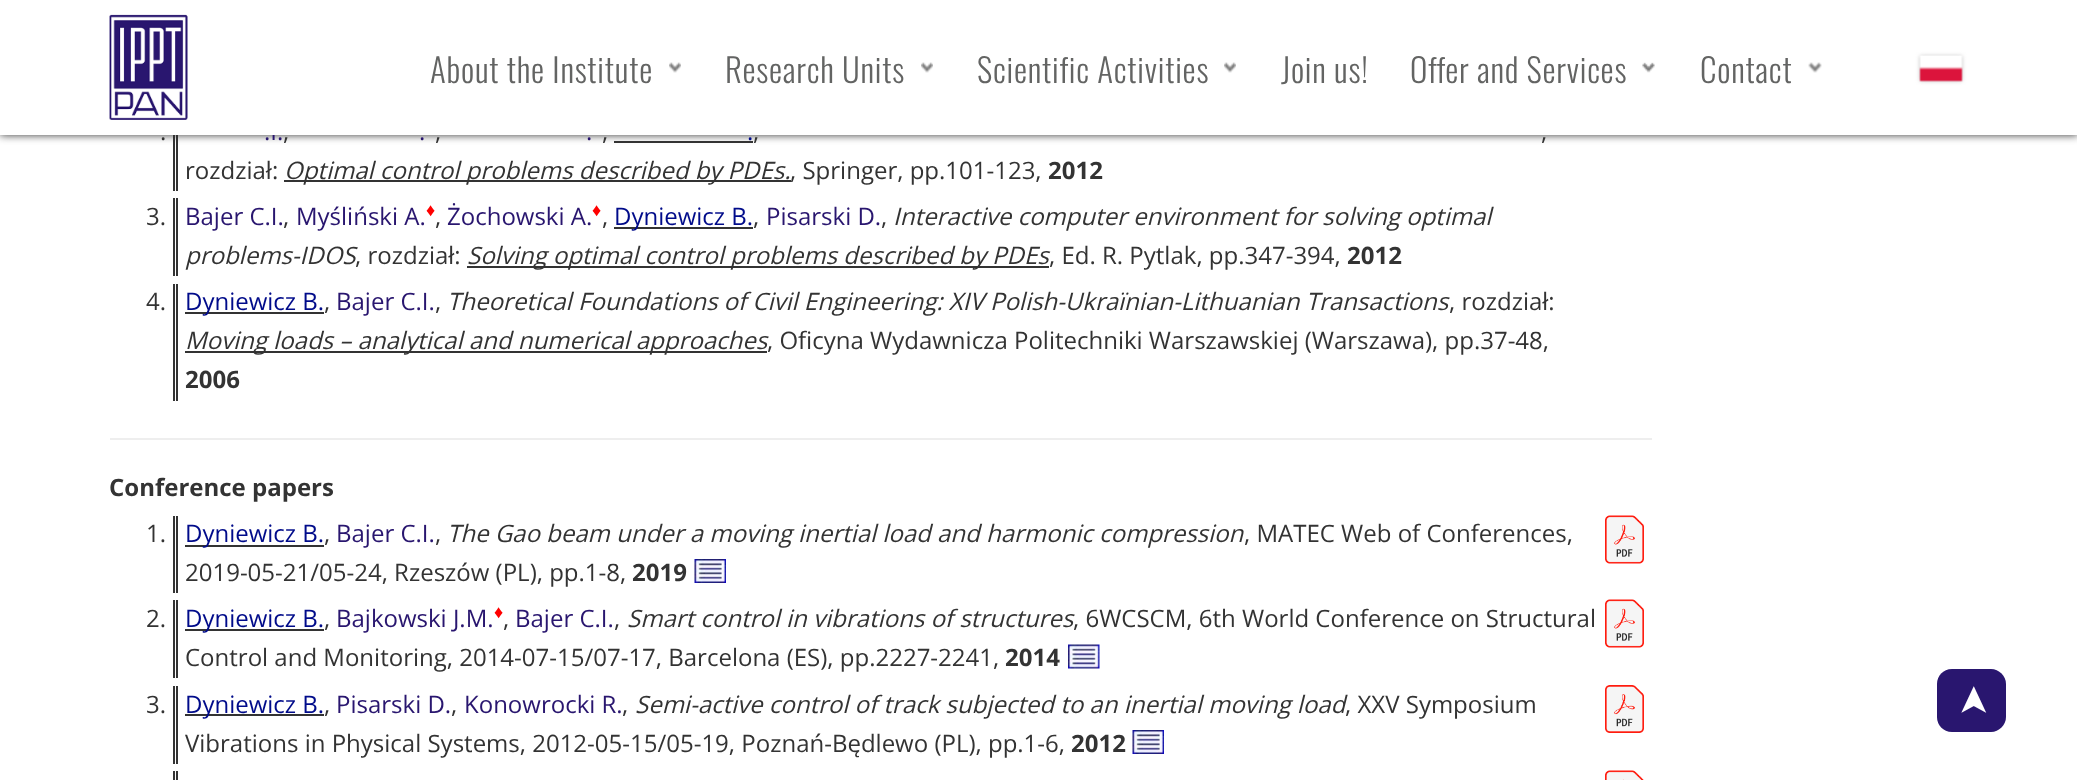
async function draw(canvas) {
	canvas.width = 2077;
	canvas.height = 780;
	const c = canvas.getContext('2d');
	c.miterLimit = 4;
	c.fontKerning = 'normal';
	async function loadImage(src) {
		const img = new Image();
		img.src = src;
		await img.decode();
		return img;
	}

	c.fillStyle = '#fff';
	c.fillRect(0, 0, 2077, 780);
	for (const [x, y, w, h, color] of [
		[173, 135, 2, 56, '#333'],
		[176, 135, 2, 56, '#333'],
		[614, 141, 139, 2, '#333'],
	]) {
		c.fillStyle = color;
		c.fillRect(x, y, w, h);
	}
	c.filter = 'blur(4px)';
	c.beginPath();
	c.rect(0, 0, 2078, 135);
	c.fill();
	c.filter = 'none';
	c.font = '24px Open Sans';
	c.fillStyle = '#29166f';
	c.fillText('.I.', 264, 140);
	c.fillStyle = '#fff';
	c.fillRect(0, 0, 2077, 135);
	c.drawImage(await loadImage('img1.png'), 109, 14, 79, 106);
	c.drawImage(await loadImage('img2.png'), 669, 62, 12, 11);
	c.letterSpacing = '0.75px';
	c.font = '300 33px Oswald';
	c.fillStyle = '#636463';
	c.fillText('About the Institute', 430, 83);
	c.drawImage(await loadImage('img2.png'), 921, 62, 12, 11);
	c.fillText('Research Units', 725, 83);
	c.drawImage(await loadImage('img2.png'), 1224, 62, 12, 11);
	c.fillText('Scientific Activities', 977, 83);
	c.fillText('Join us!', 1281, 83);
	c.drawImage(await loadImage('img3.png'), 1642, 62, 13, 11);
	c.fillText('Offer and Services', 1410, 83);
	c.drawImage(await loadImage('img4.png'), 1808, 62, 14, 11);
	c.fillText('Contact', 1700, 83);
	c.fillStyle = '#c1c1c1';
	c.filter = 'blur(2px)';
	c.beginPath();
	c.rect(1920, 56, 42, 25);
	c.fill();
	c.filter = 'none';
	c.drawImage(await loadImage('img5.png'), 1919, 55, 44, 27);
	c.letterSpacing = '0px';
	c.font = '24px Open Sans';
	c.fillStyle = '#333';
	c.fillText('.', 160, 140);
	c.fillText(',', 283, 140);
	c.fillStyle = '#29166f';
	c.fillText('.', 419, 140);
	c.fillStyle = '#333';
	c.fillText(',', 435, 140);
	c.fillStyle = '#29166f';
	c.fillText('.', 586, 140);
	c.fillStyle = '#333';
	c.fillText(',', 602, 140);
	c.fillStyle = '#000b8a';
	c.fillText('.', 747, 140);
	c.fillStyle = '#333';
	for (const [text, x, y] of [
		[',', 753, 140],
		[',', 1541, 140],
		['rozdział:', 185, 179],
	]) {
		c.fillText(text, x, y);
	}
	c.fillRect(284, 180, 507, 2);
	c.font = 'italic 24px Open Sans';
	c.fillText('Optimal control problems described by PDEs.', 284, 179);
	c.font = '24px Open Sans';
	c.fillText(', Springer, pp.101-123,', 790, 179);
	c.font = 'bold 24px Open Sans';
	c.fillText('2012', 1048, 179);
	c.fillRect(173, 198, 2, 78);
	c.fillRect(176, 198, 2, 78);
	c.font = '24px Open Sans';
	c.fillText('3.', 146, 225);
	c.fillStyle = '#29166f';
	c.fillText('Bajer C.I.', 185, 225);
	c.fillStyle = '#333';
	c.fillText(',', 283, 225);
	c.fillStyle = '#29166f';
	c.fillText('Myśliński A.', 296, 225);
	c.font = '18px Liberation Sans';
	c.fillStyle = '#f00';
	c.fillText('♦', 426, 216);
	c.font = '24px Open Sans';
	c.fillStyle = '#333';
	c.fillText(',', 435, 225);
	c.fillStyle = '#29166f';
	c.fillText('Żochowski A.', 447, 225);
	c.font = '18px Liberation Sans';
	c.fillStyle = '#f00';
	c.fillText('♦', 592, 216);
	c.font = '24px Open Sans';
	c.fillStyle = '#333';
	c.fillText(',', 602, 225);
	c.fillRect(614, 227, 139, 2);
	c.fillStyle = '#000b8a';
	c.fillText('Dyniewicz B.', 614, 225);
	c.fillStyle = '#333';
	c.fillText(',', 753, 225);
	c.fillStyle = '#29166f';
	c.fillText('Pisarski D.', 766, 225);
	c.fillStyle = '#333';
	c.fillText(',', 881, 225);
	c.font = 'italic 24px Open Sans';
	c.fillText('Interactive computer environment for solving optimal', 893, 225);
	c.fillText('problems-IDOS', 185, 264);
	c.font = '24px Open Sans';
	c.fillText(', rozdział:', 355, 264);
	c.fillRect(467, 266, 582, 2);
	c.font = 'italic 24px Open Sans';
	c.fillText('Solving optimal control problems described by PDEs', 467, 264);
	c.font = '24px Open Sans';
	c.fillText(', Ed. R. Pytlak, pp.347-394,', 1049, 264);
	c.font = 'bold 24px Open Sans';
	c.fillText('2012', 1347, 264);
	c.fillRect(173, 284, 2, 117);
	c.fillRect(176, 284, 2, 117);
	c.font = '24px Open Sans';
	c.fillText('4.', 146, 310);
	c.fillRect(185, 312, 139, 2);
	c.fillStyle = '#000b8a';
	c.fillText('Dyniewicz B.', 185, 310);
	c.fillStyle = '#333';
	c.fillText(',', 324, 310);
	c.fillStyle = '#29166f';
	c.fillText('Bajer C.I.', 336, 310);
	c.fillStyle = '#333';
	c.fillText(',', 435, 310);
	c.font = 'italic 24px Open Sans';
	c.fillText('Theoretical Foundations of Civil Engineering: XIV Polish-Ukraïnian-Lithuanian Transactions', 447, 310);
	c.font = '24px Open Sans';
	c.fillText(', rozdział:', 1449, 310);
	c.fillRect(185, 351, 582, 2);
	c.font = 'italic 24px Open Sans';
	c.fillText('Moving loads – analytical and numerical approaches', 185, 349);
	c.font = '24px Open Sans';
	c.fillText(', Oficyna Wydawnicza Politechniki Warszawskiej (Warszawa), pp.37-48,', 767, 349);
	c.font = 'bold 24px Open Sans';
	c.fillText('2006', 185, 388);
	c.fillStyle = '#eee';
	c.fillRect(110, 438, 1542, 2);
	c.fillStyle = '#333';
	c.fillText('Conference papers', 109, 496);
	c.fillRect(173, 516, 2, 77);
	c.fillRect(176, 516, 2, 77);
	c.font = '24px Open Sans';
	c.fillText('1.', 146, 542);
	c.fillRect(185, 545, 139, 2);
	c.fillStyle = '#000b8a';
	c.fillText('Dyniewicz B.', 185, 542);
	c.fillStyle = '#333';
	c.fillText(',', 324, 542);
	c.fillStyle = '#29166f';
	c.fillText('Bajer C.I.', 336, 542);
	c.fillStyle = '#333';
	c.fillText(',', 435, 542);
	c.font = 'italic 24px Open Sans';
	c.fillText('The Gao beam under a moving inertial load and harmonic compression', 447, 542);
	c.font = '24px Open Sans';
	c.fillText(', MATEC Web of Conferences,', 1244, 542);
	c.fillText('2019-05-21/05-24, Rzeszów (PL), pp.1-8,', 185, 581);
	c.font = 'bold 24px Open Sans';
	c.fillText('2019', 632, 581);
	c.drawImage(await loadImage('img6.png'), 694, 559, 32, 24);
	c.drawImage(await loadImage('img7.png'), 1605, 515, 39, 49);
	c.fillRect(173, 600, 2, 78);
	c.fillRect(176, 600, 2, 78);
	c.font = '24px Open Sans';
	c.fillText('2.', 146, 627);
	c.fillRect(185, 629, 139, 2);
	c.fillStyle = '#000b8a';
	c.fillText('Dyniewicz B.', 185, 627);
	c.fillStyle = '#333';
	c.fillText(',', 324, 627);
	c.fillStyle = '#29166f';
	c.fillText('Bajkowski J.M.', 336, 627);
	c.font = '18px Liberation Sans';
	c.fillStyle = '#f00';
	c.fillText('♦', 494, 618);
	c.font = '24px Open Sans';
	c.fillStyle = '#333';
	c.fillText(',', 503, 627);
	c.fillStyle = '#29166f';
	c.fillText('Bajer C.I.', 515, 627);
	c.fillStyle = '#333';
	c.fillText(',', 614, 627);
	c.font = 'italic 24px Open Sans';
	c.fillText('Smart control in vibrations of structures', 627, 627);
	c.font = '24px Open Sans';
	c.fillText(', 6WCSCM, 6th World Conference on Structural', 1073, 627);
	c.fillText('Control and Monitoring, 2014-07-15/07-17, Barcelona (ES), pp.2227-2241,', 185, 666);
	c.font = 'bold 24px Open Sans';
	c.fillText('2014', 1005, 666);
	c.drawImage(await loadImage('img8.png'), 1068, 644, 32, 25);
	c.drawImage(await loadImage('img7.png'), 1605, 599, 39, 49);
	c.fillRect(173, 686, 2, 78);
	c.fillRect(176, 686, 2, 78);
	c.font = '24px Open Sans';
	c.fillText('3.', 146, 713);
	c.fillRect(185, 714, 139, 2);
	c.fillStyle = '#000b8a';
	c.fillText('Dyniewicz B.', 185, 713);
	c.fillStyle = '#333';
	c.fillText(',', 324, 713);
	c.fillStyle = '#29166f';
	c.fillText('Pisarski D.', 336, 713);
	c.fillStyle = '#333';
	c.fillText(',', 451, 713);
	c.fillStyle = '#29166f';
	c.fillText('Konowrocki R.', 464, 713);
	c.fillStyle = '#333';
	c.fillText(',', 622, 713);
	c.font = 'italic 24px Open Sans';
	c.fillText('Semi-active control of track subjected to an inertial moving load', 635, 713);
	c.font = '24px Open Sans';
	c.fillText(', XXV Symposium', 1345, 713);
	c.fillText('Vibrations in Physical Systems, 2012-05-15/05-19, Poznań-Będlewo (PL), pp.1-6,', 185, 752);
	c.font = 'bold 24px Open Sans';
	c.fillText('2012', 1071, 752);
	c.drawImage(await loadImage('img6.png'), 1132, 730, 32, 24);
	c.drawImage(await loadImage('img9.png'), 1605, 685, 39, 48);
	c.fillRect(173, 771, 2, 9);
	c.fillRect(176, 771, 2, 9);
	c.drawImage(await loadImage('img10.png'), 1605, 770, 39, 10);
	c.fillStyle = '#29166f';
	c.beginPath();
	c.moveTo(1937, 717);
	c.lineTo(1937, 684);
	c.bezierCurveTo(1937, 676, 1943, 669, 1952, 669);
	c.lineTo(1991, 669);
	c.bezierCurveTo(1999, 669, 2006, 676, 2006, 684);
	c.lineTo(2006, 717);
	c.bezierCurveTo(2006, 725, 1999, 732, 1991, 732);
	c.lineTo(1952, 732);
	c.bezierCurveTo(1943, 732, 1937, 725, 1937, 717);
	c.closePath();
	c.fill();
	c.font = '39px DejaVu Sans';
	c.fillStyle = '#fff';
	c.save();
	c.translate(1986, 717);
	c.rotate(-90 * Math.PI / 180);
	c.fillText('➤', 0, 0);
	c.restore();
}

draw(document.querySelector('canvas'));
